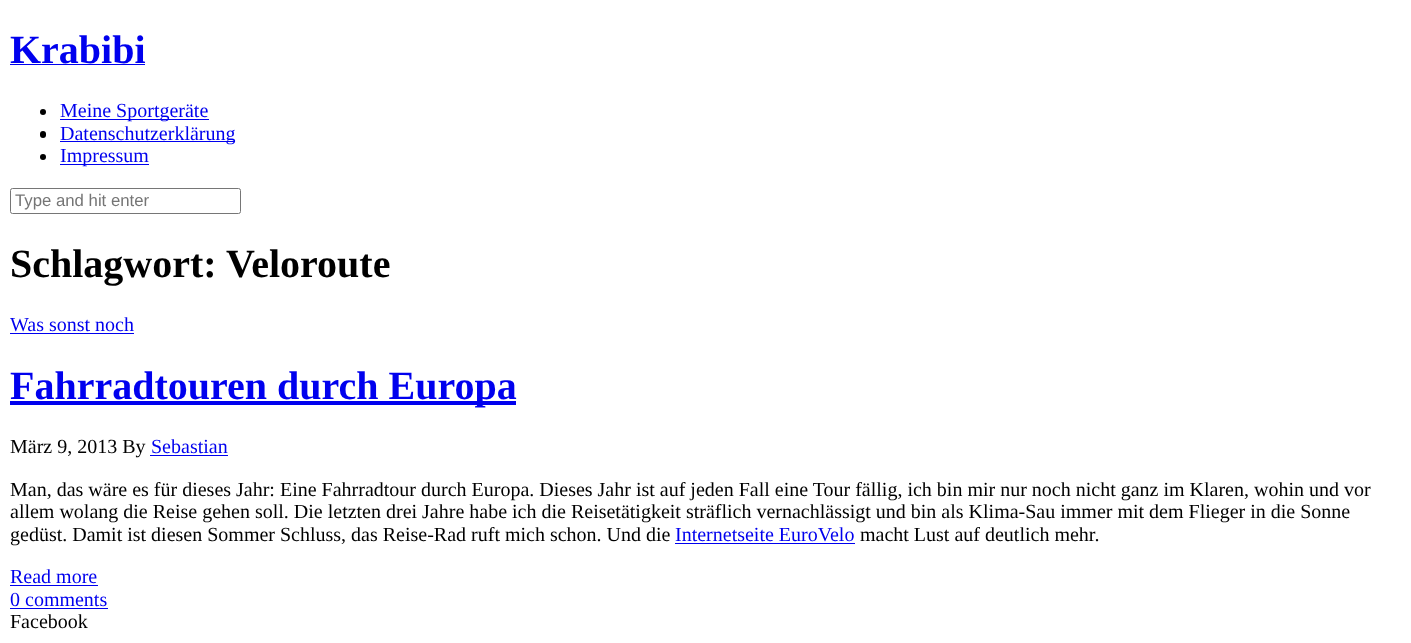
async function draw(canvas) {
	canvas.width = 1411;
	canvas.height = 643;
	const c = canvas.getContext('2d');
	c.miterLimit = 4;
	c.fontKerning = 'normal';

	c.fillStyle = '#fff';
	c.fillRect(0, 0, 1411, 643);
	c.font = 'bold 40px Liberation Serif';
	c.fillStyle = '#00e';
	c.fillText('Krabibi', 10, 63);
	c.fillRect(10, 64, 135, 1);
	c.fillStyle = '#000';
	c.beginPath();
	c.arc(43, 112, 3, 0, 2 * Math.PI);
	c.fill();
	c.fillStyle = '#00e';
	c.fillRect(60, 119, 149, 1);
	c.font = '20px Liberation Serif';
	c.fillText('Meine Sportgeräte', 60, 117);
	c.fillStyle = '#000';
	c.beginPath();
	c.roundRect(40, 131, 6, 7, 3);
	c.fill();
	c.fillStyle = '#00e';
	c.fillRect(60, 141, 175, 1);
	c.fillText('Datenschutzerklärung', 60, 140);
	c.fillStyle = '#000';
	c.beginPath();
	c.arc(43, 157, 3, 0, 2 * Math.PI);
	c.fill();
	c.fillStyle = '#00e';
	c.fillRect(60, 164, 89, 1);
	c.fillText('Impressum', 60, 162);
	c.beginPath();
	c.roundRect(10.5, 188.5, 230, 25, 2);
	c.strokeStyle = '#767676';
	c.stroke();
	c.font = '16.75px Liberation Sans';
	c.fillStyle = '#757575';
	c.fillText('Type and hit enter', 15, 206);
	c.font = 'bold 40px Liberation Serif';
	c.fillStyle = '#000';
	c.fillText('Schlagwort:', 10, 277);
	c.fillText('Veloroute', 226, 277);
	c.font = '20px Liberation Serif';
	c.fillStyle = '#00e';
	c.fillText('Was sonst noch', 10, 331);
	c.fillRect(10, 333, 124, 1);
	c.fillRect(10, 401, 506, 4);
	c.font = 'bold 40px Liberation Serif';
	c.fillText('Fahrradtouren durch Europa', 10, 399);
	c.font = '20px Liberation Serif';
	c.fillStyle = '#000';
	c.fillText('März 9, 2013 By', 10, 453);
	c.fillStyle = '#00e';
	c.fillText('Sebastian', 151, 453);
	c.fillRect(150, 455, 78, 1);
	c.fillStyle = '#000';
	for (const [text, x, y] of [
		['Man, das wäre es für dieses Jahr: Eine Fahrradtour durch Europa. Dieses Jahr ist auf jeden Fall eine Tour fällig, ich bin mir nur noch nicht ganz im Klaren, wohin und vor', 10, 496],
		['allem wolang die Reise gehen soll. Die letzten drei Jahre habe ich die Reisetätigkeit sträflich vernachlässigt und bin als Klima-Sau immer mit dem Flieger in die Sonne', 10, 518],
		['gedüst. Damit ist diesen Sommer Schluss, das Reise-Rad ruft mich schon. Und die', 10, 541],
	]) {
		c.fillText(text, x, y);
	}
	c.fillStyle = '#00e';
	c.fillText('Internetseite EuroVelo', 675, 541);
	c.fillRect(675, 543, 180, 1);
	c.fillStyle = '#000';
	c.fillText('macht Lust auf deutlich mehr.', 860, 541);
	c.fillStyle = '#00e';
	c.fillText('Read more', 10, 583);
	c.fillRect(10, 585, 88, 1);
	c.fillText('0 comments', 10, 606);
	c.fillRect(10, 608, 98, 1);
	c.fillStyle = '#000';
	c.fillText('Facebook', 10, 628);
}

draw(document.querySelector('canvas'));
